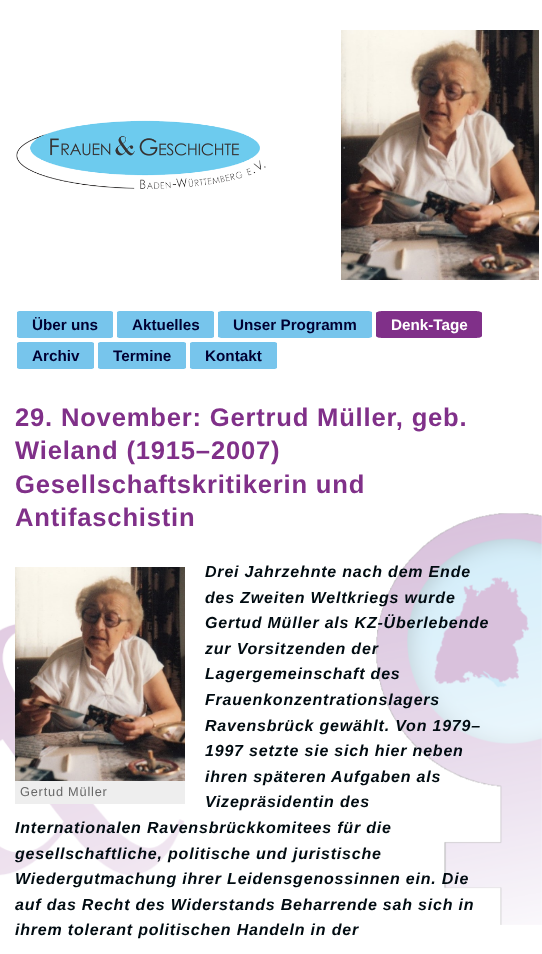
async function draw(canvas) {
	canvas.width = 542;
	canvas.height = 954;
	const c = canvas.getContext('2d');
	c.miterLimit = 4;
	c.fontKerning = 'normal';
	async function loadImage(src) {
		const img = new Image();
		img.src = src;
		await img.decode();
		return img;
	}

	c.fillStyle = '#fff';
	c.fillRect(0, 0, 542, 954);
	c.drawImage(await loadImage('img1.png'), 16, 120, 250, 69);
	c.drawImage(await loadImage('img2.png'), 341, 30, 198, 250);
	c.fillStyle = '#77c5ec';
	c.beginPath();
	c.moveTo(19, 311);
	c.lineTo(111, 311);
	c.lineTo(113, 312);
	c.lineTo(113, 337);
	c.lineTo(111, 338);
	c.lineTo(19, 338);
	c.lineTo(17, 337);
	c.lineTo(17, 312);
	c.closePath();
	c.fill();
	c.font = 'bold 15.25px Liberation Sans';
	c.fillStyle = '#003';
	c.fillText('Über uns', 32, 330);
	c.fillStyle = '#77c5ec';
	c.beginPath();
	c.moveTo(119, 311);
	c.lineTo(212, 311);
	c.lineTo(214, 312);
	c.lineTo(214, 337);
	c.lineTo(212, 338);
	c.lineTo(119, 338);
	c.lineTo(117, 337);
	c.lineTo(117, 312);
	c.closePath();
	c.fill();
	c.fillStyle = '#003';
	c.fillText('Aktuelles', 132, 330);
	c.fillStyle = '#77c5ec';
	c.beginPath();
	c.moveTo(221, 311);
	c.lineTo(369, 311);
	c.lineTo(372, 312);
	c.lineTo(372, 337);
	c.lineTo(369, 338);
	c.lineTo(221, 338);
	c.lineTo(218, 337);
	c.lineTo(218, 312);
	c.closePath();
	c.fill();
	c.fillStyle = '#003';
	c.fillText('Unser Programm', 233, 330);
	c.fillStyle = '#803089';
	c.beginPath();
	c.moveTo(383, 311);
	c.lineTo(475, 311);
	c.bezierCurveTo(479, 311, 482, 312, 482, 313);
	c.lineTo(482, 336);
	c.bezierCurveTo(482, 337, 479, 338, 475, 338);
	c.lineTo(383, 338);
	c.bezierCurveTo(379, 338, 376, 337, 376, 336);
	c.lineTo(376, 313);
	c.bezierCurveTo(376, 312, 379, 311, 383, 311);
	c.closePath();
	c.fill();
	c.fillStyle = '#fff';
	c.fillText('Denk-Tage', 391, 330);
	c.fillStyle = '#77c5ec';
	c.beginPath();
	c.moveTo(19, 342);
	c.lineTo(92, 342);
	c.lineTo(94, 343);
	c.lineTo(94, 368);
	c.lineTo(92, 369);
	c.lineTo(19, 369);
	c.lineTo(17, 368);
	c.lineTo(17, 343);
	c.closePath();
	c.fill();
	c.fillStyle = '#003';
	c.fillText('Archiv', 32, 361);
	c.fillStyle = '#77c5ec';
	c.beginPath();
	c.moveTo(100, 342);
	c.lineTo(184, 342);
	c.lineTo(186, 343);
	c.lineTo(186, 368);
	c.lineTo(184, 369);
	c.lineTo(100, 369);
	c.lineTo(98, 368);
	c.lineTo(98, 343);
	c.closePath();
	c.fill();
	c.fillStyle = '#003';
	c.fillText('Termine', 113, 361);
	c.fillStyle = '#77c5ec';
	c.beginPath();
	c.moveTo(192, 342);
	c.lineTo(275, 342);
	c.lineTo(277, 343);
	c.lineTo(277, 368);
	c.lineTo(275, 369);
	c.lineTo(192, 369);
	c.lineTo(190, 368);
	c.lineTo(190, 343);
	c.closePath();
	c.fill();
	c.fillStyle = '#003';
	c.fillText('Kontakt', 205, 361);
	c.letterSpacing = '0.8px';
	c.font = 'bold 25.6px Liberation Sans';
	c.fillStyle = '#803089';
	for (const [text, x, y] of [
		['29. November: Gertrud Müller, geb.', 15, 426],
		['Wieland (1915–2007)', 15, 459],
		['Gesellschaftskritikerin und', 15, 493],
		['Antifaschistin', 15, 526],
	]) {
		c.fillText(text, x, y);
	}
	c.drawImage(await loadImage('img5.png'), 375, 513, 167, 412);
	c.font = 'italic bold 16px Liberation Sans';
	c.fillStyle = '#000b11';
	for (const [text, x, y] of [
		['Drei Jahrzehnte nach dem Ende', 205, 577],
		['des Zweiten Weltkriegs wurde', 205, 603],
		['Gertud Müller als KZ-Überlebende', 205, 628],
		['zur Vorsitzenden der', 205, 654],
		['Lagergemeinschaft des', 205, 679],
		['Frauenkonzentrationslagers', 205, 705],
		['Ravensbrück gewählt. Von 1979–', 205, 731],
		['1997 setzte sie sich hier neben', 205, 756],
		['ihren späteren Aufgaben als', 205, 782],
		['Vizepräsidentin des', 205, 807],
	]) {
		c.fillText(text, x, y);
	}
	c.drawImage(await loadImage('img4.png'), 0, 623, 185, 253);
	for (const [text, x, y] of [
		['Internationalen Ravensbrückkomitees für die', 15, 833],
		['gesellschaftliche, politische und juristische', 15, 859],
		['Wiedergutmachung ihrer Leidensgenossinnen ein. Die', 15, 884],
		['auf das Recht des Widerstands Beharrende sah sich in', 15, 910],
		['ihrem tolerant politischen Handeln in der', 15, 935],
	]) {
		c.fillText(text, x, y);
	}
	c.drawImage(await loadImage('img3.png'), 15, 567, 170, 214);
	c.fillStyle = '#eee';
	c.fillRect(15, 781, 170, 23);
	c.font = '12.75px Liberation Sans';
	c.fillStyle = '#666';
	c.fillText('Gertud Müller', 20, 796);
}

draw(document.querySelector('canvas'));
